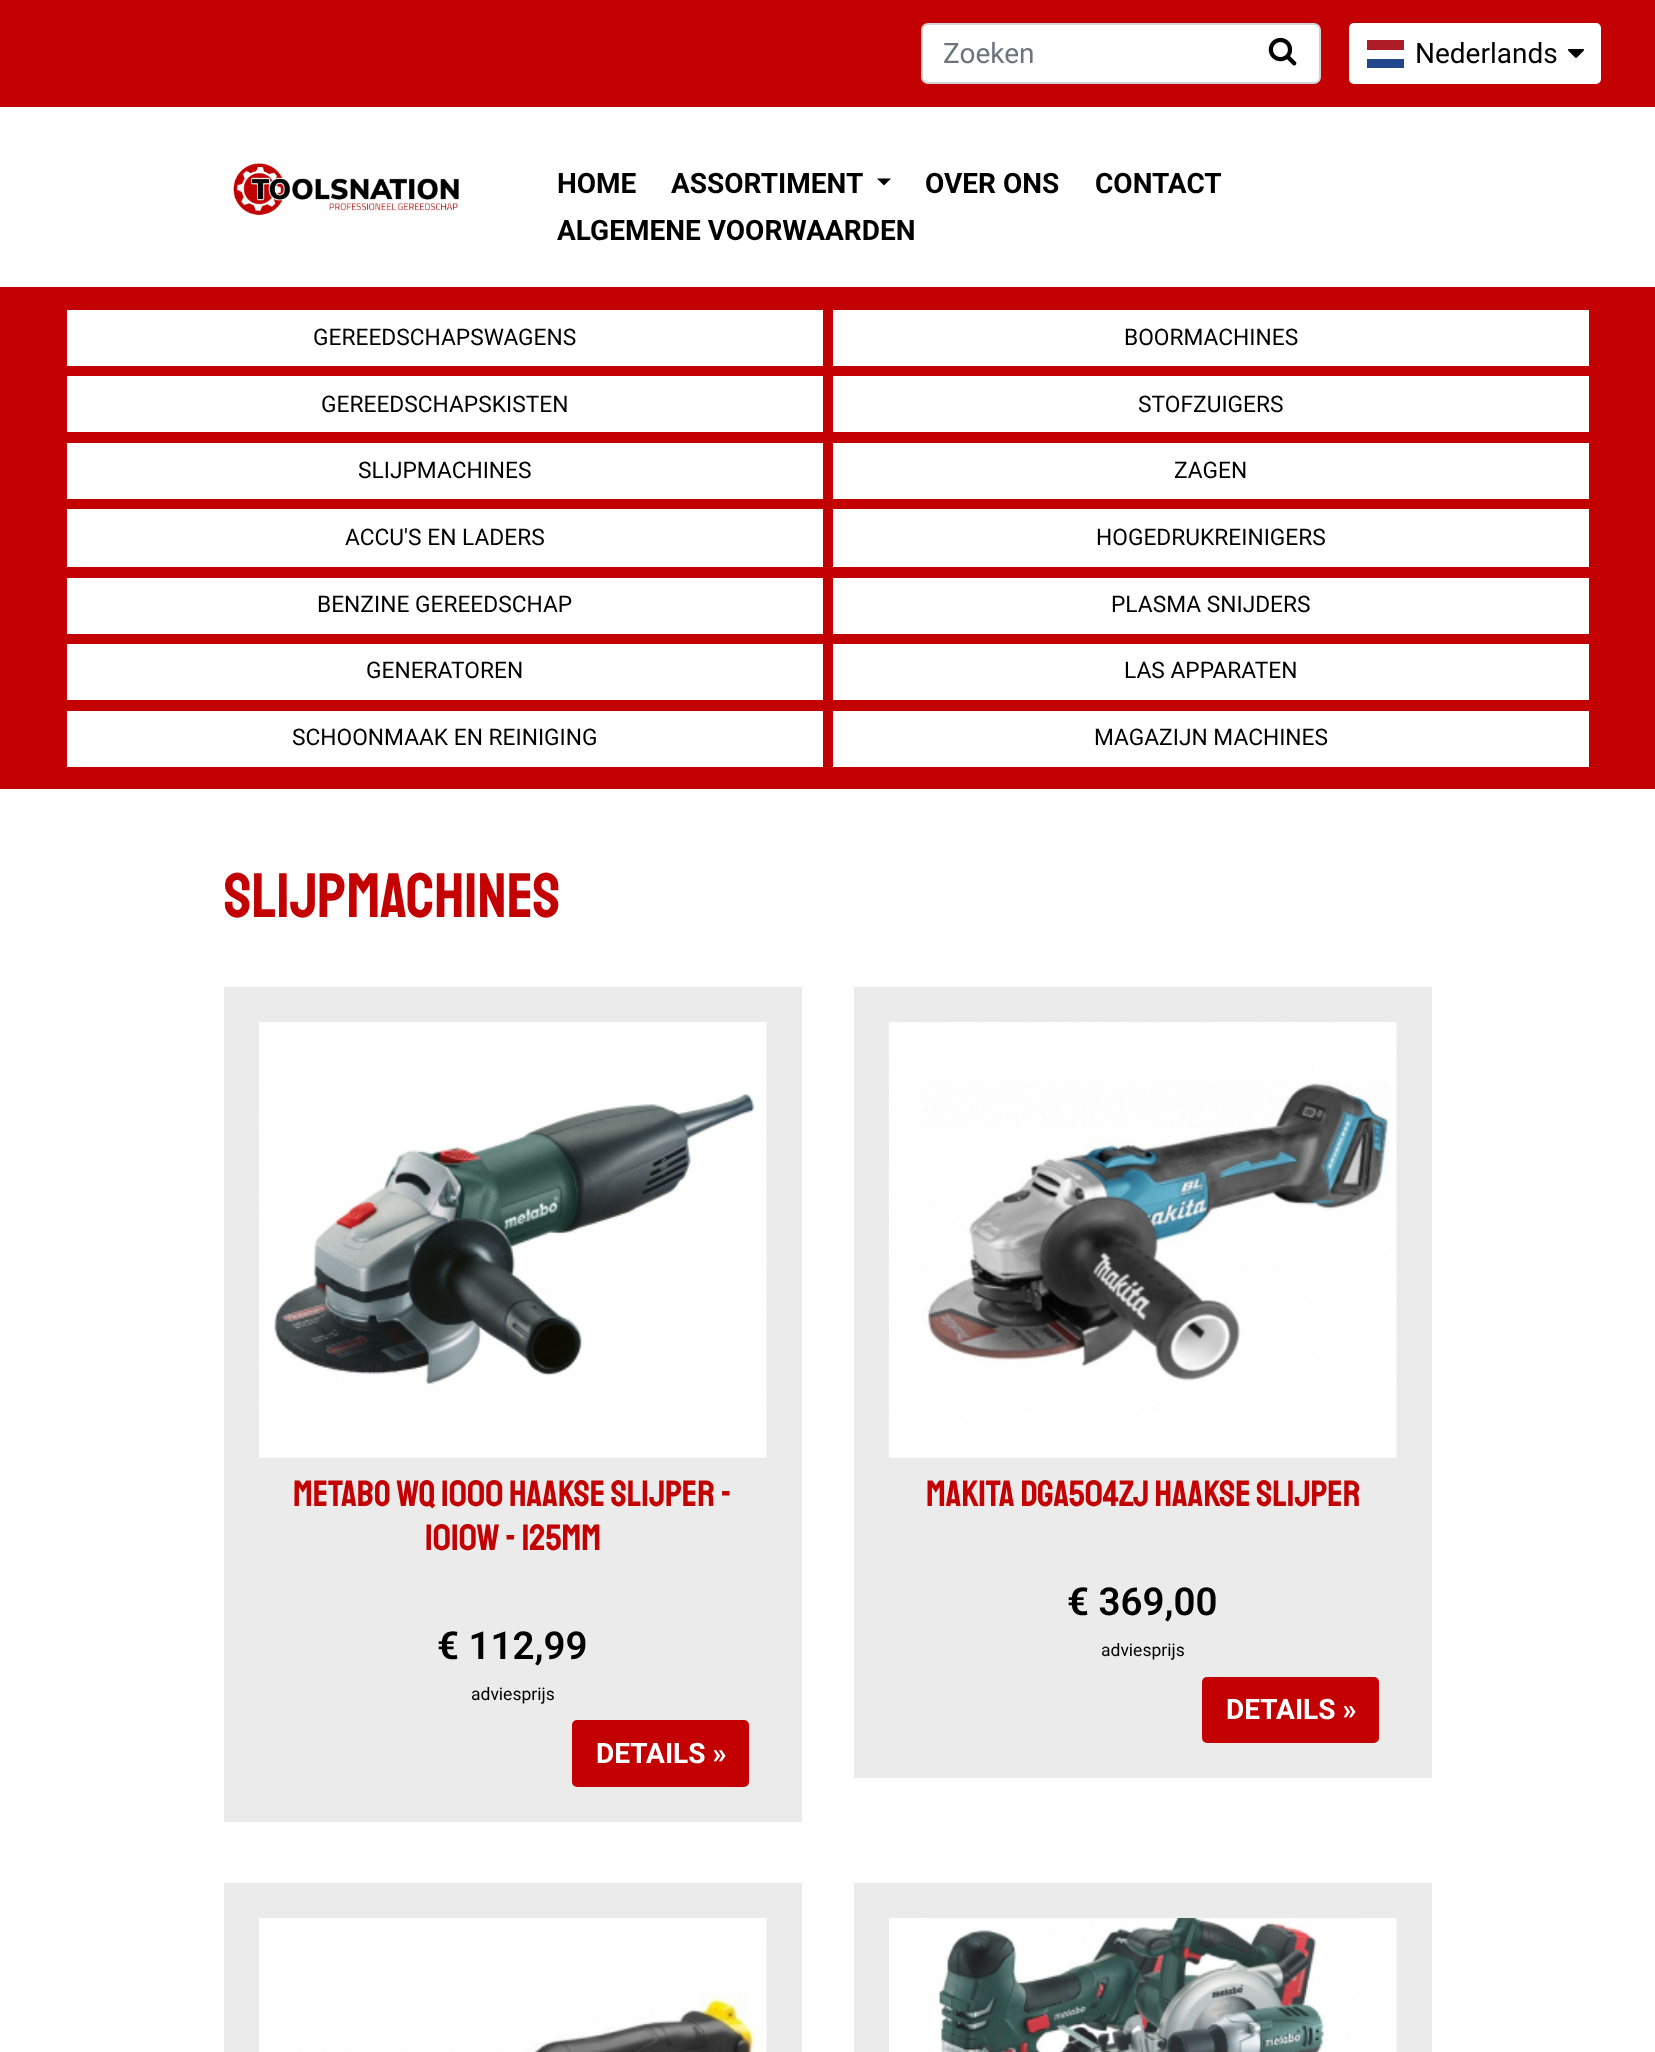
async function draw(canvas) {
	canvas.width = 1655;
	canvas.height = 2052;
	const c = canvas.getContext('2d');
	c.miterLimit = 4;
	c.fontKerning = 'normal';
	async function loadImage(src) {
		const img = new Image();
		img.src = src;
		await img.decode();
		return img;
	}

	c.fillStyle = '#fff';
	c.fillRect(0, 0, 1655, 2052);
	c.fillStyle = '#c30102';
	c.fillRect(0, 0, 1655, 107);
	c.fillStyle = '#fff';
	c.beginPath();
	c.roundRect(922, 24, 398, 59, 6);
	c.fill();
	c.strokeStyle = '#ced4da';
	c.lineWidth = 2;
	c.stroke();
	c.font = '28px Roboto';
	c.fillStyle = '#6c757d';
	c.fillText('Zoeken', 943, 63);
	c.drawImage(await loadImage('img1.png'), 1268, 37, 29, 29);
	c.fillStyle = '#fff';
	c.beginPath();
	c.roundRect(1349, 23, 252, 61, 5);
	c.fill();
	c.fillStyle = '#21468b';
	c.fillRect(1367, 59, 37, 9);
	c.fillStyle = '#ae1c28';
	c.fillRect(1367, 40, 37, 10);
	c.fillStyle = '#000';
	c.fillText('Nederlands', 1415, 63);
	c.drawImage(await loadImage('img2.png'), 1568, 49, 16, 9);
	c.drawImage(await loadImage('img3.png'), 233, 163, 226, 53);
	c.font = 'bold 28px Roboto';
	c.fillText('HOME', 557, 193);
	c.fillText('ASSORTIMENT', 671, 193);
	c.beginPath();
	c.moveTo(877, 178.5);
	c.lineTo(891, 178.5);
	c.lineTo(884, 185.5);
	c.closePath();
	c.fill();
	for (const [text, x, y] of [
		['OVER ONS', 925, 193],
		['CONTACT', 1095, 193],
		['ALGEMENE VOORWAARDEN', 557, 240],
	]) {
		c.fillText(text, x, y);
	}
	c.fillStyle = '#c30102';
	c.fillRect(0, 287, 1655, 502);
	c.fillStyle = '#fff';
	c.fillRect(67, 310, 756, 56);
	c.font = '22.75px Roboto';
	c.fillStyle = '#000';
	c.fillText('GEREEDSCHAPSWAGENS', 313, 345);
	c.fillStyle = '#fff';
	c.fillRect(833, 310, 756, 56);
	c.fillStyle = '#000';
	c.fillText('BOORMACHINES', 1124, 345);
	c.fillStyle = '#fff';
	c.fillRect(67, 376, 756, 56);
	c.fillStyle = '#000';
	c.fillText('GEREEDSCHAPSKISTEN', 321, 412);
	c.fillStyle = '#fff';
	c.fillRect(833, 376, 756, 56);
	c.fillStyle = '#000';
	c.fillText('STOFZUIGERS', 1138, 412);
	c.fillStyle = '#fff';
	c.fillRect(67, 443, 756, 56);
	c.fillStyle = '#000';
	c.fillText('SLIJPMACHINES', 358, 478);
	c.fillStyle = '#fff';
	c.fillRect(833, 443, 756, 56);
	c.fillStyle = '#000';
	c.fillText('ZAGEN', 1174, 478);
	c.fillStyle = '#fff';
	c.fillRect(67, 509, 756, 58);
	c.fillStyle = '#000';
	c.fillText('ACCU\'S EN LADERS', 345, 545);
	c.fillStyle = '#fff';
	c.fillRect(833, 509, 756, 58);
	c.fillStyle = '#000';
	c.fillText('HOGEDRUKREINIGERS', 1096, 545);
	c.fillStyle = '#fff';
	c.fillRect(67, 578, 756, 56);
	c.fillStyle = '#000';
	c.fillText('BENZINE GEREEDSCHAP', 317, 612);
	c.fillStyle = '#fff';
	c.fillRect(833, 578, 756, 56);
	c.fillStyle = '#000';
	c.fillText('PLASMA SNIJDERS', 1111, 612);
	c.fillStyle = '#fff';
	c.fillRect(67, 644, 756, 56);
	c.fillStyle = '#000';
	c.fillText('GENERATOREN', 366, 678);
	c.fillStyle = '#fff';
	c.fillRect(833, 644, 756, 56);
	c.fillStyle = '#000';
	c.fillText('LAS APPARATEN', 1124, 678);
	c.fillStyle = '#fff';
	c.fillRect(67, 711, 756, 56);
	c.fillStyle = '#000';
	c.fillText('SCHOONMAAK EN REINIGING', 292, 745);
	c.fillStyle = '#fff';
	c.fillRect(833, 711, 756, 56);
	c.fillStyle = '#000';
	c.fillText('MAGAZIJN MACHINES', 1094, 745);
	c.font = '63px Staatliches';
	c.fillStyle = '#c30102';
	c.fillText('Slijpmachines', 224, 917);
	c.fillStyle = '#ebebec';
	c.fillRect(224, 987, 578, 835);
	c.drawImage(await loadImage('img4.png'), 259, 1022, 508, 436);
	c.font = '36.75px Staatliches';
	c.fillStyle = '#c30102';
	c.fillText('METABO WQ 1000 HAAKSE SLIJPER -', 293, 1506);
	c.fillText('1010W - 125MM', 425, 1550);
	c.font = '600 38.5px Roboto';
	c.fillStyle = '#000';
	c.fillText('€ 112,99', 437, 1659);
	c.font = '17.5px Roboto';
	c.fillText('adviesprijs', 471, 1700);
	c.fillStyle = '#c30102';
	c.beginPath();
	c.roundRect(572, 1720, 177, 67, 5);
	c.fill();
	c.font = 'bold 28px Roboto';
	c.fillStyle = '#fff';
	c.fillText('DETAILS »', 596, 1763);
	c.fillStyle = '#ebebec';
	c.fillRect(854, 987, 578, 791);
	c.drawImage(await loadImage('img5.png'), 889, 1022, 508, 436);
	c.font = '36.75px Staatliches';
	c.fillStyle = '#c30102';
	c.fillText('MAKITA DGA504ZJ HAAKSE SLIJPER', 926, 1506);
	c.font = '600 38.5px Roboto';
	c.fillStyle = '#000';
	c.fillText('€ 369,00', 1067, 1615);
	c.font = '17.5px Roboto';
	c.fillText('adviesprijs', 1101, 1656);
	c.fillStyle = '#c30102';
	c.beginPath();
	c.roundRect(1202, 1677, 177, 66, 5);
	c.fill();
	c.font = 'bold 28px Roboto';
	c.fillStyle = '#fff';
	c.fillText('DETAILS »', 1226, 1719);
	c.fillStyle = '#ebebec';
	c.fillRect(224, 1883, 578, 169);
	c.drawImage(await loadImage('img6.png'), 259, 1918, 508, 134);
	c.fillRect(854, 1883, 578, 169);
	c.drawImage(await loadImage('img7.png'), 889, 1918, 508, 134);
}

draw(document.querySelector('canvas'));
